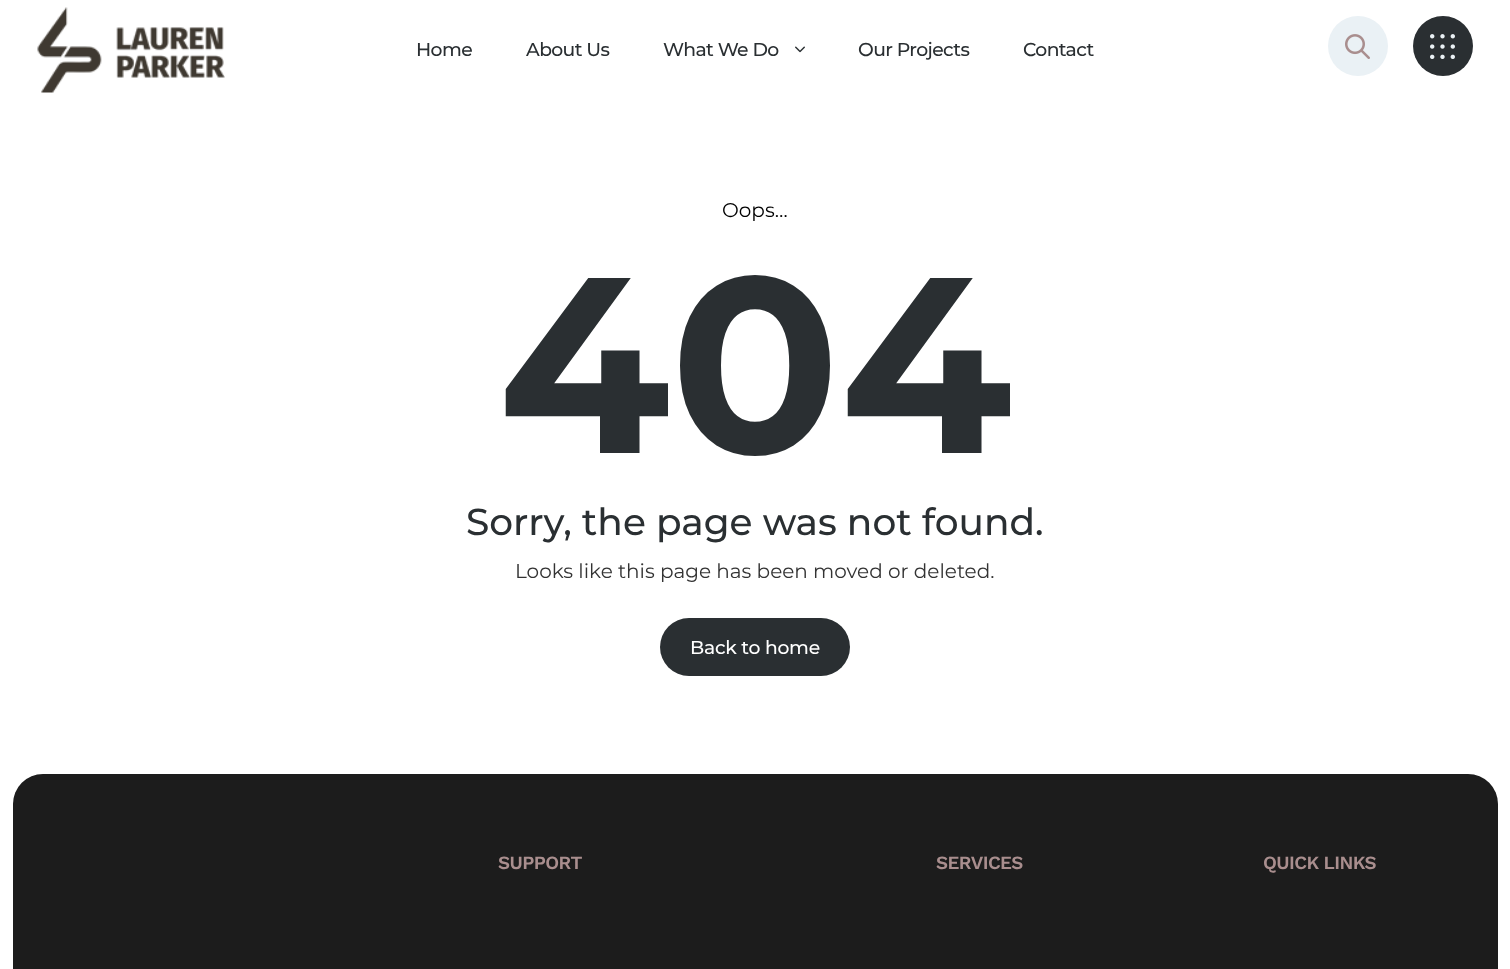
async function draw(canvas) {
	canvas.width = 1510;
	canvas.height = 969;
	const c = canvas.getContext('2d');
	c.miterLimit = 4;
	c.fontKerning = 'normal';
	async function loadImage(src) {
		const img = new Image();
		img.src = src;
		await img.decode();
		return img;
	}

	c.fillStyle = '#fff';
	c.fillRect(0, 0, 1510, 969);
	c.drawImage(await loadImage('img1.png'), 37, 7, 188, 86);
	c.letterSpacing = '-0.6px';
	c.font = '500 18.75px Montserrat';
	c.fillStyle = '#2a2f32';
	for (const [text, x, y] of [
		['Home', 416, 56],
		['About Us', 526, 56],
		['What We Do', 663, 56],
	]) {
		c.fillText(text, x, y);
	}
	c.drawImage(await loadImage('img2.png'), 795, 46, 10, 7);
	c.fillText('Our Projects', 858, 56);
	c.fillText('Contact', 1023, 56);
	c.fillStyle = '#eaf1f5';
	c.beginPath();
	c.arc(1358, 46, 30, 0, 2 * Math.PI);
	c.fill();
	c.drawImage(await loadImage('img3.png'), 1345, 34, 25, 25);
	c.fillStyle = '#2a2f32';
	c.beginPath();
	c.arc(1443, 46, 30, 0, 2 * Math.PI);
	c.fill();
	c.drawImage(await loadImage('img4.png'), 1430, 34, 25, 25);
	c.letterSpacing = '0px';
	c.font = '20px Montserrat';
	c.fillStyle = '#000';
	c.fillText('Oops…', 722, 217);
	c.font = 'bold 250px Montserrat';
	c.fillStyle = '#2a2f32';
	c.fillText('404', 498, 453);
	c.font = '500 37.5px Montserrat';
	c.fillText('Sorry, the page was not found.', 466, 535);
	c.font = '20px Montserrat';
	c.fillStyle = '#333';
	c.fillText('Looks like this page has been moved or deleted.', 515, 578);
	c.fillStyle = '#2a2f32';
	c.beginPath();
	c.roundRect(660, 618, 190, 58, 29);
	c.fill();
	c.letterSpacing = '-0.25px';
	c.font = '500 18.75px Montserrat';
	c.fillStyle = '#fff';
	c.fillText('Back to home', 690, 654);
	c.fillStyle = '#1c1c1c';
	c.beginPath();
	c.roundRect(13, 774, 1485, 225, 30);
	c.fill();
	c.letterSpacing = '-0.6px';
	c.font = '600 18.75px Work Sans';
	c.fillStyle = '#a98e8e';
	for (const [text, x, y] of [
		['SUPPORT', 498, 869],
		['SERVICES', 936, 869],
		['QUICK LINKS', 1263, 869],
	]) {
		c.fillText(text, x, y);
	}
}

draw(document.querySelector('canvas'));
